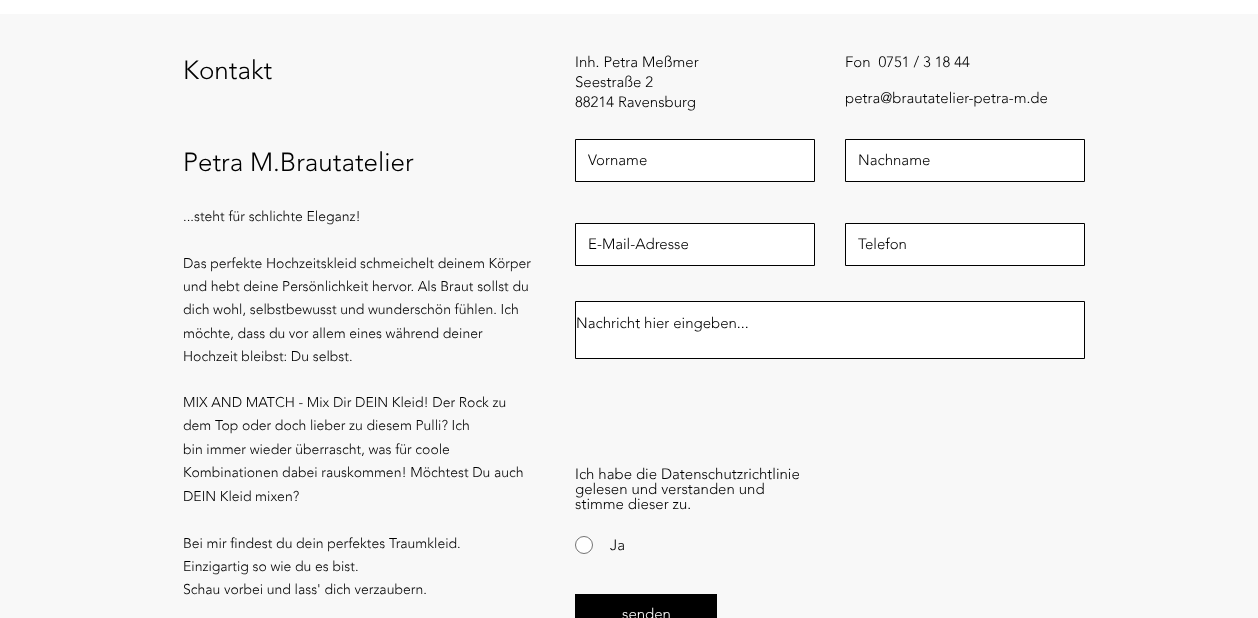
async function draw(canvas) {
	canvas.width = 1258;
	canvas.height = 618;
	const c = canvas.getContext('2d');
	c.miterLimit = 4;
	c.fontKerning = 'normal';

	c.fillStyle = '#f8f8f8';
	c.fillRect(0, 0, 1258, 618);
	c.fillStyle = '#fff';
	c.fillRect(0, 0, 1258, 14);
	c.font = '300 26px "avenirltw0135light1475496"';
	c.fillStyle = '#000';
	c.fillText('Kontakt', 183, 79);
	c.font = '300 15px "avenirltw0135light1475496"';
	for (const [text, x, y] of [
		['Inh. Petra Meßmer', 575, 67],
		['Seestraße 2', 575, 87],
		['88214 Ravensburg', 575, 107],
		['Fon  0751 / 3 18 44', 845, 67],
		['petra@brautatelier-petra-m.de', 845, 103],
	]) {
		c.fillText(text, x, y);
	}
	c.font = '300 26px "avenirltw0135light1475496"';
	c.fillText('Petra M.Brautatelier', 183, 171);
	c.font = '300 14px "avenirltw0135light1475496"';
	for (const [text, x, y] of [
		['...steht für schlichte Eleganz!', 183, 221],
		['Das perfekte Hochzeitskleid schmeichelt deinem Körper', 183, 268],
		['und hebt deine Persönlichkeit hervor. Als Braut sollst du', 183, 291],
		['dich wohl, selbstbewusst und wunderschön fühlen. Ich', 183, 314],
		['möchte, dass du vor allem eines während deiner', 183, 338],
		['Hochzeit bleibst: Du selbst.', 183, 361],
		['MIX AND MATCH - Mix Dir DEIN Kleid! Der Rock zu', 183, 407],
		['dem Top oder doch lieber zu diesem Pulli? Ich', 183, 430],
		['bin immer wieder überrascht, was für coole', 183, 454],
		['Kombinationen dabei rauskommen! Möchtest Du auch', 183, 477],
		['DEIN Kleid mixen?', 183, 501],
		['Bei mir findest du dein perfektes Traumkleid.', 183, 548],
		['Einzigartig so wie du es bist.', 183, 571],
		['Schau vorbei und lass\' dich verzaubern.', 183, 594],
	]) {
		c.fillText(text, x, y);
	}
	c.fillStyle = '#fff';
	c.beginPath();
	c.rect(575.5, 139.5, 239, 42);
	c.fill();
	c.strokeStyle = '#000';
	c.stroke();
	c.font = '300 15px "avenirltw0135light1475496"';
	c.fillStyle = '#000';
	c.fillText('Vorname', 588, 165);
	c.fillStyle = '#fff';
	c.beginPath();
	c.rect(845.5, 139.5, 239, 42);
	c.fill();
	c.stroke();
	c.fillStyle = '#000';
	c.fillText('Nachname', 858, 165);
	c.fillStyle = '#fff';
	c.beginPath();
	c.rect(575.5, 223.5, 239, 42);
	c.fill();
	c.stroke();
	c.fillStyle = '#000';
	c.fillText('E-Mail-Adresse', 588, 249);
	c.fillStyle = '#fff';
	c.beginPath();
	c.rect(845.5, 223.5, 239, 42);
	c.fill();
	c.stroke();
	c.fillStyle = '#000';
	c.fillText('Telefon', 858, 249);
	c.fillStyle = '#fff';
	c.beginPath();
	c.rect(575.5, 301.5, 509, 57);
	c.fill();
	c.stroke();
	c.fillStyle = '#000';
	for (const [text, x, y] of [
		['Nachricht hier eingeben...', 576, 328],
		['Ich habe die Datenschutzrichtlinie', 575, 479],
		['gelesen und verstanden und', 575, 494],
		['stimme dieser zu.', 575, 509],
	]) {
		c.fillText(text, x, y);
	}
	c.fillStyle = '#fff';
	c.beginPath();
	c.arc(584, 545, 9, 0, 2 * Math.PI);
	c.fill();
	c.beginPath();
	c.arc(584, 545, 8.5, 0, 2 * Math.PI);
	c.strokeStyle = '#0000008c';
	c.stroke();
	c.fillStyle = '#000';
	c.fillText('Ja', 610, 550);
	c.fillRect(575, 594, 142, 24);
	c.fillStyle = '#fff';
	c.fillText('senden', 622, 619);
}

draw(document.querySelector('canvas'));
